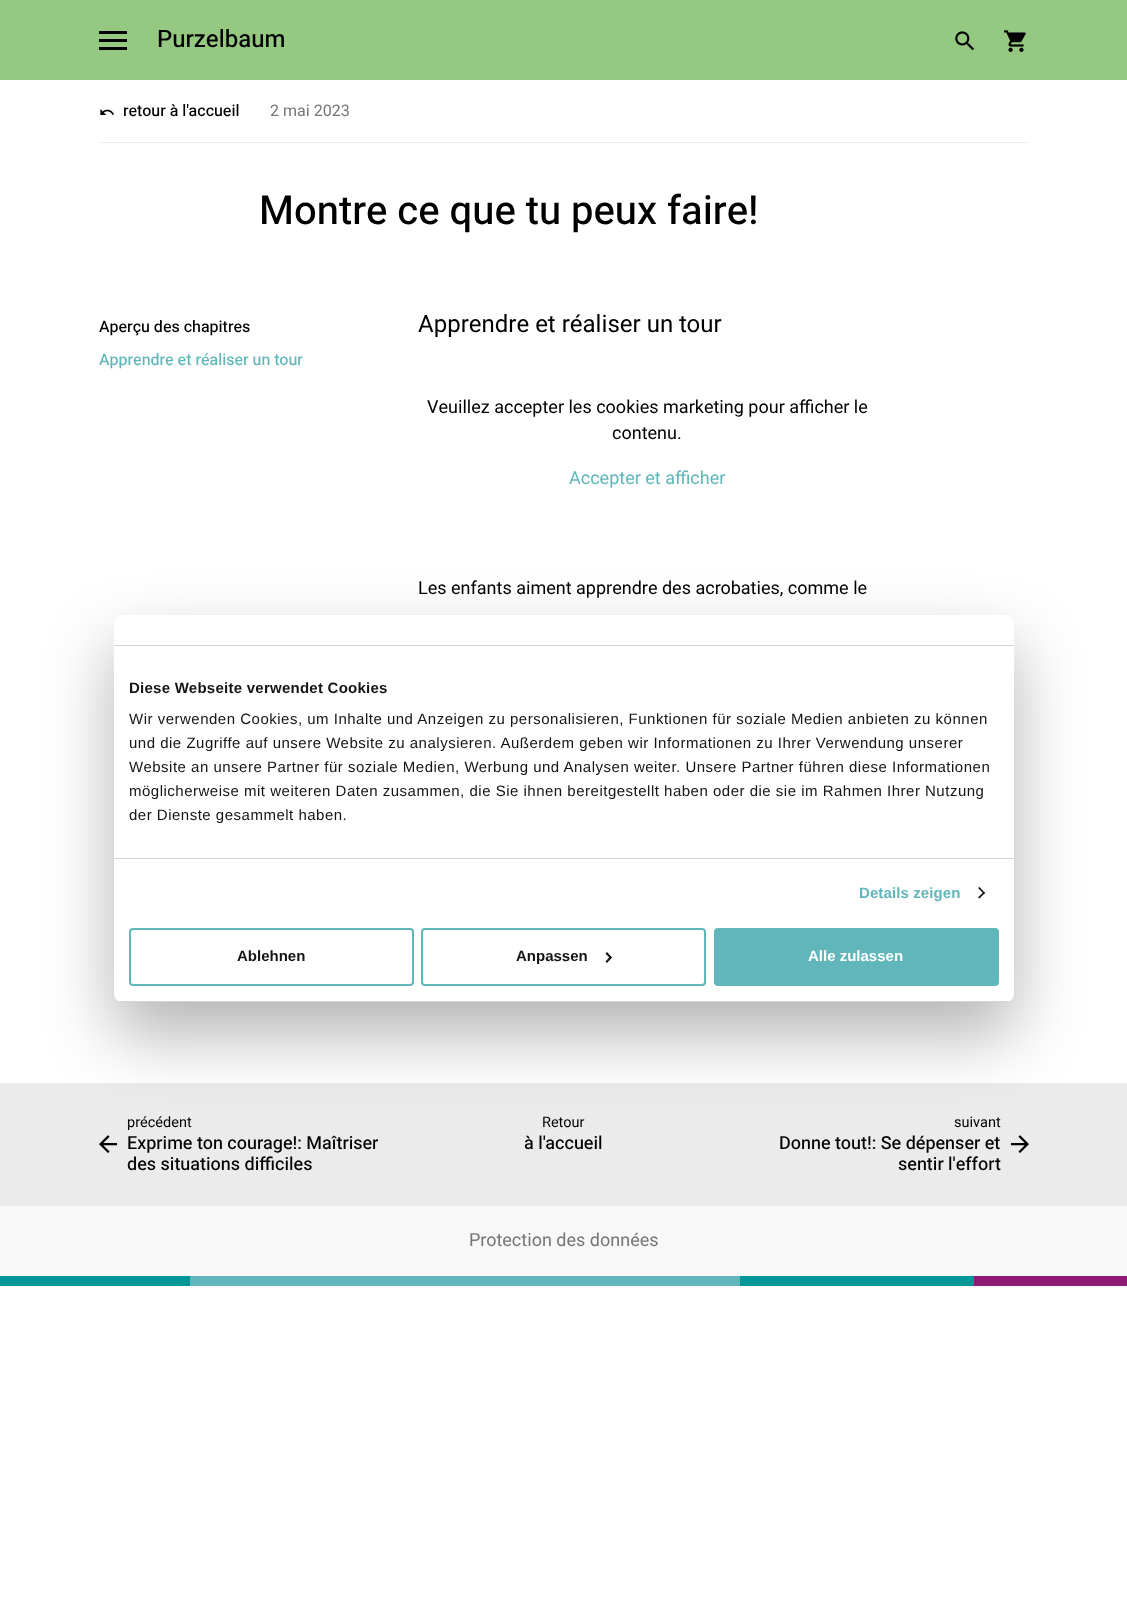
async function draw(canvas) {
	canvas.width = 1127;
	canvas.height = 1616;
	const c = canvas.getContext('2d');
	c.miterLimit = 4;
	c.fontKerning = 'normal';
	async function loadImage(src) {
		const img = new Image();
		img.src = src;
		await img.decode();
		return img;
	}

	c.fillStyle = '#fff';
	c.fillRect(0, 0, 1127, 1616);
	for (const [x, y, w, h, color] of [
		[0, 0, 1127, 80, '#95c881'],
		[99, 39, 28, 3, '#000'],
		[99, 31, 28, 3, '#000'],
		[99, 47, 28, 3, '#000'],
	]) {
		c.fillStyle = color;
		c.fillRect(x, y, w, h);
	}
	c.font = '500 24px Heebo';
	c.fillText('Purzelbaum', 157, 47);
	c.drawImage(await loadImage('img1.png'), 955, 31, 20, 20);
	c.drawImage(await loadImage('img2.png'), 1004, 30, 22, 22);
	c.fillStyle = '#ebebeb';
	c.fillRect(99, 142, 930, 1);
	c.drawImage(await loadImage('img3.png'), 100, 109, 14, 6);
	c.font = '500 16px Heebo';
	c.fillStyle = '#000';
	c.fillText('retour à l\'accueil', 123, 116);
	c.font = '16px Heebo';
	c.fillStyle = '#767676';
	c.fillText('2 mai 2023', 270, 116);
	c.font = '500 40px Heebo';
	c.fillStyle = '#000';
	c.fillText('Montre ce que tu peux faire!', 259, 224);
	c.font = '500 16px Heebo';
	c.fillText('Aperçu des chapitres', 99, 332);
	c.fillStyle = '#60b6ba';
	c.fillText('Apprendre et réaliser un tour', 99, 365);
	c.font = '24px Heebo';
	c.fillStyle = '#000';
	c.fillText('Apprendre et réaliser un tour', 418, 332);
	c.font = '18px Heebo';
	c.fillText('Veuillez accepter les cookies marketing pour afficher le', 427, 413);
	c.fillText('contenu.', 612, 439);
	c.fillStyle = '#60b6ba';
	c.fillText('Accepter et afficher', 569, 484);
	c.fillStyle = '#000';
	c.fillText('Les enfants aiment apprendre des acrobaties, comme le', 418, 594);
	c.fillStyle = '#ebebeb';
	c.fillRect(0, 1083, 1127, 123);
	c.drawImage(await loadImage('img4.png'), 99, 1135, 18, 18);
	c.font = '14.5px Heebo';
	c.fillStyle = '#000';
	c.fillText('précédent', 127, 1127);
	c.font = '500 18px Heebo';
	c.fillText('Exprime ton courage!: Maîtriser', 127, 1149);
	c.fillText('des situations difficiles', 127, 1170);
	c.font = '14.5px Heebo';
	c.fillText('Retour', 542, 1127);
	c.font = '500 18px Heebo';
	c.fillText('à l\'accueil', 524, 1149);
	c.font = '14.5px Heebo';
	c.fillText('suivant', 954, 1127);
	c.font = '500 18px Heebo';
	c.fillText('Donne tout!: Se dépenser et', 779, 1149);
	c.fillText('sentir l\'effort', 898, 1170);
	c.drawImage(await loadImage('img5.png'), 1011, 1135, 18, 18);
	c.fillStyle = '#f8f8f8';
	c.fillRect(0, 1206, 1127, 70);
	c.font = '18px Heebo';
	c.fillStyle = '#767676';
	c.fillText('Protection des données', 469, 1246);
	for (const [x, y, w, h, color] of [
		[190, 1276, 550, 10, '#60b6ba'],
		[0, 1276, 190, 10, '#009799'],
		[740, 1276, 234, 10, '#009799'],
		[974, 1276, 153, 10, '#8f1b74'],
	]) {
		c.fillStyle = color;
		c.fillRect(x, y, w, h);
	}
	c.fillStyle = '#0000004d';
	c.filter = 'blur(34px)';
	c.beginPath();
	c.roundRect(114, 647, 900, 387, 8);
	c.fill();
	c.filter = 'none';
	c.fillStyle = '#fff';
	c.beginPath();
	c.roundRect(114, 615, 900, 387, 8);
	c.fill();
	c.fillStyle = '#d6d6d6';
	c.fillRect(114, 645, 900, 1);
	c.fillRect(114, 858, 900, 1);
	c.letterSpacing = '0.25px';
	c.font = 'bold 15px Liberation Sans';
	c.fillStyle = '#141414';
	c.fillText('Diese Webseite verwendet Cookies', 129, 693);
	c.letterSpacing = '0.5px';
	c.font = '15px Liberation Sans';
	for (const [text, x, y] of [
		['Wir verwenden Cookies, um Inhalte und Anzeigen zu personalisieren, Funktionen für soziale Medien anbieten zu können', 129, 724],
		['und die Zugriffe auf unsere Website zu analysieren. Außerdem geben wir Informationen zu Ihrer Verwendung unserer', 129, 748],
		['Website an unsere Partner für soziale Medien, Werbung und Analysen weiter. Unsere Partner führen diese Informationen', 129, 772],
		['möglicherweise mit weiteren Daten zusammen, die Sie ihnen bereitgestellt haben oder die sie im Rahmen Ihrer Nutzung', 129, 796],
		['der Dienste gesammelt haben.', 129, 820],
	]) {
		c.fillText(text, x, y);
	}
	c.letterSpacing = '0.1px';
	c.font = 'bold 15px Liberation Sans';
	c.fillStyle = '#60b6ba';
	c.fillText('Details zeigen', 859, 898);
	c.fillStyle = '#141414';
	c.beginPath();
	c.moveTo(979.5, 887);
	c.lineTo(985, 893);
	c.lineTo(984, 894);
	c.lineTo(978, 888);
	c.closePath();
	c.fill();
	c.beginPath();
	c.moveTo(984, 891.5);
	c.lineTo(985, 893);
	c.lineTo(979.5, 898.5);
	c.lineTo(978, 897.5);
	c.closePath();
	c.fill();
	c.save();
	c.beginPath();
	c.roundRect(114, 615, 900, 387, 8);
	c.clip();
	c.fillStyle = '#d6d6d6';
	c.fillRect(114, 1001, 900, 1);
	c.restore();
	c.beginPath();
	c.roundRect(130, 929, 283, 56, 3);
	c.strokeStyle = '#60b6ba';
	c.lineWidth = 2;
	c.stroke();
	c.letterSpacing = '0px';
	c.fillText('Ablehnen', 237, 961);
	c.beginPath();
	c.roundRect(422, 929, 283, 56, 3);
	c.stroke();
	c.fillText('Anpassen', 516, 961);
	c.beginPath();
	c.moveTo(607, 952);
	c.lineTo(612, 957.5);
	c.lineTo(610.5, 959);
	c.lineTo(605.5, 953.5);
	c.closePath();
	c.fill();
	c.beginPath();
	c.moveTo(610.5, 956);
	c.lineTo(612, 957.5);
	c.lineTo(607, 963);
	c.lineTo(605.5, 961.5);
	c.closePath();
	c.fill();
	c.fillStyle = '#60b6ba';
	c.beginPath();
	c.roundRect(715, 929, 283, 56, 3);
	c.fill();
	c.stroke();
	c.fillStyle = '#fff';
	c.fillText('Alle zulassen', 808, 961);
}

draw(document.querySelector('canvas'));
